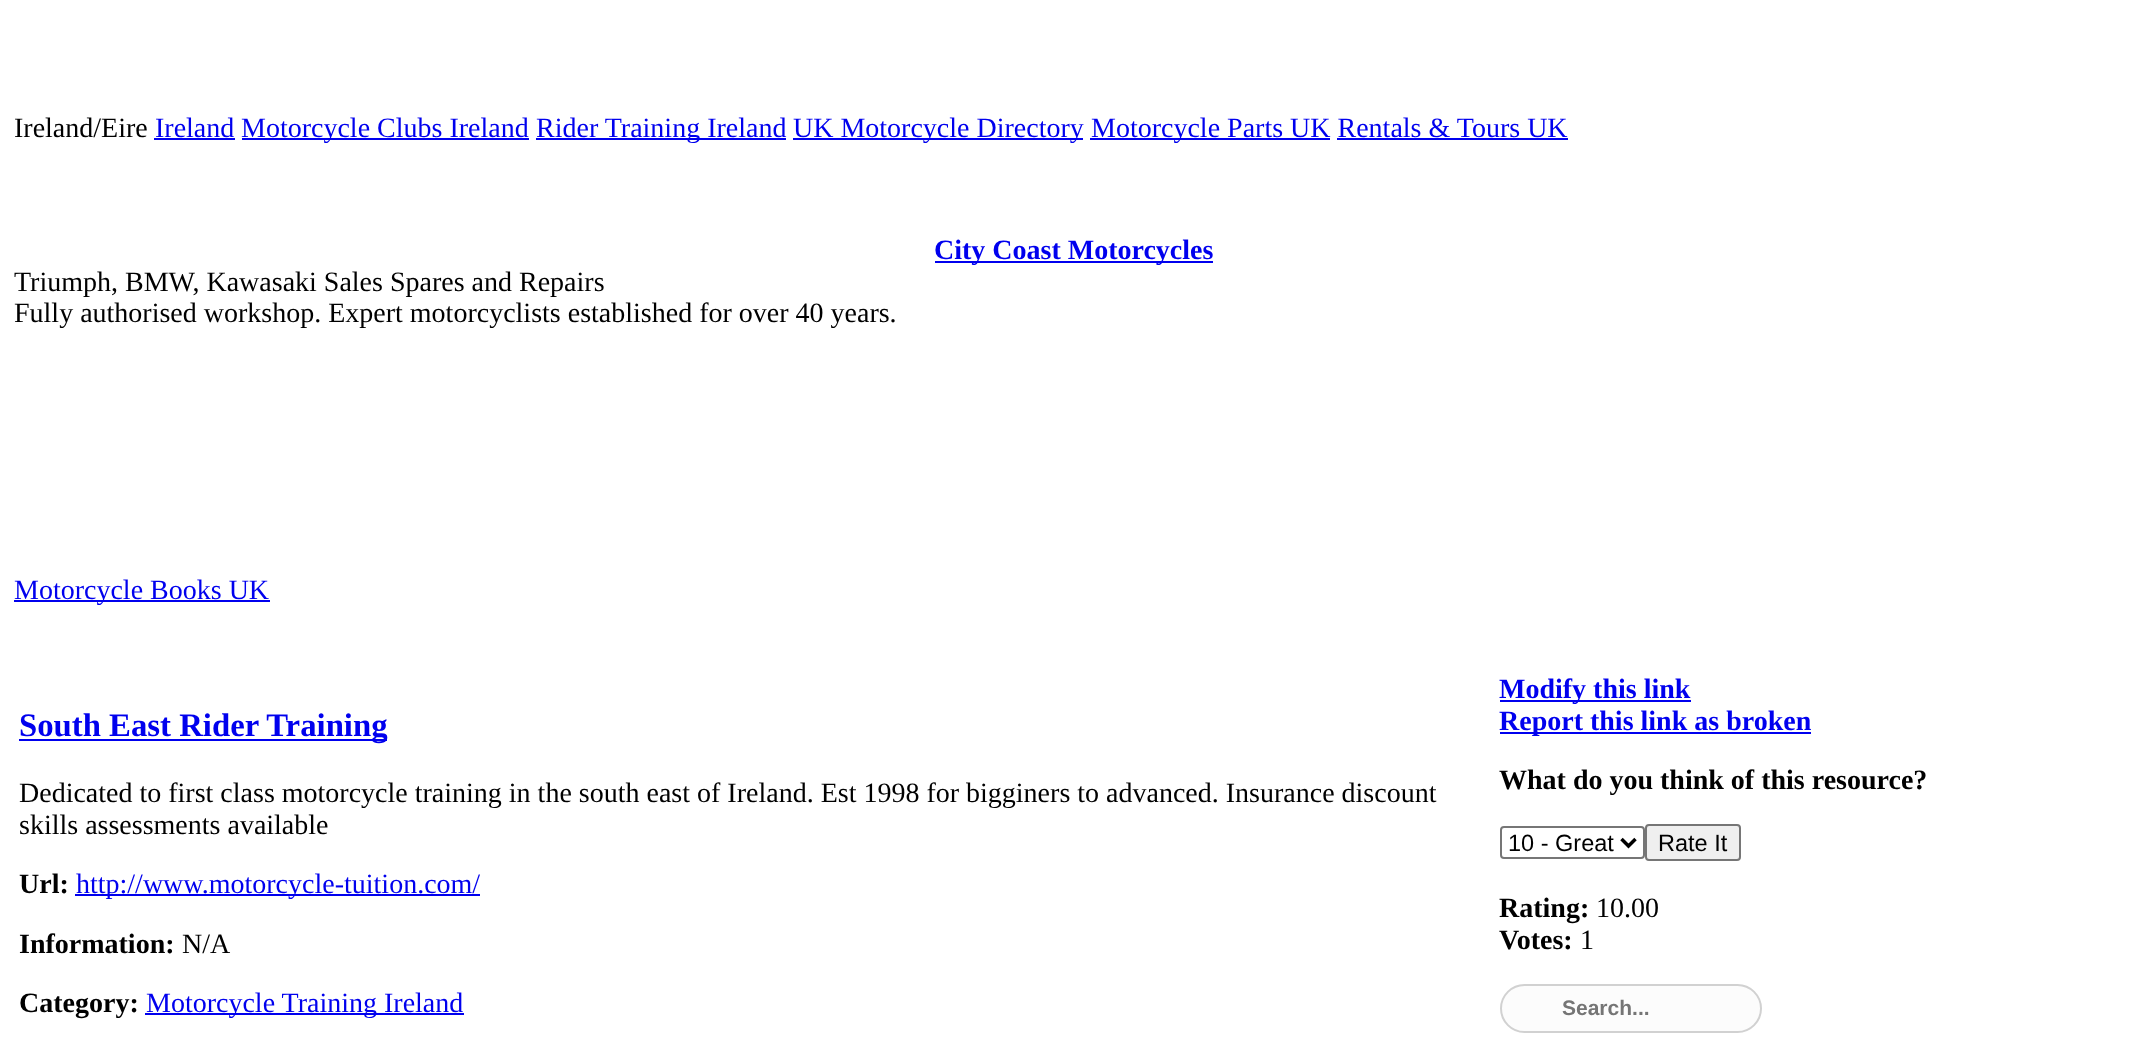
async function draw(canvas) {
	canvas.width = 2147;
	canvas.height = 1064;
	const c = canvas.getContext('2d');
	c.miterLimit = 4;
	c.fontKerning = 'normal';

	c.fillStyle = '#fff';
	c.fillRect(0, 0, 2147, 1064);
	c.font = '28px Liberation Serif';
	c.fillStyle = '#000';
	c.fillText('Ireland/Eire', 14, 137);
	c.fillStyle = '#00e';
	c.fillText('Ireland', 155, 137);
	c.fillRect(154, 138, 81, 2);
	c.fillRect(242, 138, 287, 2);
	c.fillText('Motorcycle Clubs Ireland', 241, 137);
	c.fillRect(536, 138, 250, 2);
	c.fillText('Rider Training Ireland', 536, 137);
	c.fillRect(793, 138, 290, 2);
	c.fillText('UK Motorcycle Directory', 793, 137);
	c.fillRect(1090, 138, 240, 2);
	c.fillText('Motorcycle Parts UK Rentals & Tours UK', 1091, 137);
	c.fillRect(1337, 138, 231, 2);
	c.fillRect(935, 261, 278, 2);
	c.font = 'bold 28px Liberation Serif';
	c.fillText('City Coast Motorcycles', 934, 259);
	c.font = '28px Liberation Serif';
	c.fillStyle = '#000';
	c.fillText('Triumph, BMW, Kawasaki Sales Spares and Repairs', 14, 291);
	c.fillText('Fully authorised workshop. Expert motorcyclists established for over 40 years.', 14, 322);
	c.fillStyle = '#00e';
	c.fillRect(14, 600, 256, 2);
	c.fillText('Motorcycle Books UK', 14, 599);
	c.fillRect(19, 739, 368, 2);
	c.font = 'bold 32.75px Liberation Serif';
	c.fillText('South East Rider Training', 19, 736);
	c.font = '28px Liberation Serif';
	c.fillStyle = '#000';
	c.fillText('Dedicated to first class motorcycle training in the south east of Ireland. Est 1998 for bigginers to advanced. Insurance discount', 19, 802);
	c.fillText('skills assessments available', 19, 834);
	c.font = 'bold 28px Liberation Serif';
	c.fillText('Url:', 19, 893);
	c.fillStyle = '#00e';
	c.fillRect(75, 894, 405, 2);
	c.font = '28px Liberation Serif';
	c.fillText('http://www.motorcycle-tuition.com/', 76, 893);
	c.font = 'bold 28px Liberation Serif';
	c.fillStyle = '#000';
	c.fillText('Information:', 19, 953);
	c.font = '28px Liberation Serif';
	c.fillText('N/A', 182, 953);
	c.font = 'bold 28px Liberation Serif';
	c.fillText('Category:', 19, 1012);
	c.fillStyle = '#00e';
	c.fillRect(145, 1013, 319, 2);
	c.font = '28px Liberation Serif';
	c.fillText('Motorcycle Training Ireland', 146, 1012);
	c.fillRect(1500, 700, 191, 2);
	c.font = 'bold 28px Liberation Serif';
	c.fillText('Modify this link', 1499, 698);
	c.fillRect(1500, 732, 311, 2);
	c.fillText('Report this link as broken', 1499, 730);
	c.fillStyle = '#000';
	c.fillText('What do you think of this resource?', 1499, 789);
	c.beginPath();
	c.roundRect(1501, 827, 143, 31, 3);
	c.strokeStyle = '#767676';
	c.lineWidth = 2;
	c.stroke();
	c.beginPath();
	c.moveTo(1621.5, 839);
	c.lineTo(1628.5, 846);
	c.lineTo(1635.5, 839);
	c.strokeStyle = '#000';
	c.lineWidth = 3.5;
	c.stroke();
	c.font = '23.5px Liberation Sans';
	c.fillText('10 - Great', 1508, 851);
	c.fillStyle = '#efefef';
	c.beginPath();
	c.roundRect(1646, 825, 94, 35, 3);
	c.fill();
	c.strokeStyle = '#767676';
	c.lineWidth = 2;
	c.stroke();
	c.fillStyle = '#000';
	c.fillText('Rate It', 1658, 851);
	c.font = 'bold 28px Liberation Serif';
	c.fillText('Rating:', 1499, 917);
	c.font = '28px Liberation Serif';
	c.fillText('10.00', 1596, 917);
	c.font = 'bold 28px Liberation Serif';
	c.fillText('Votes:', 1499, 949);
	c.font = '28px Liberation Serif';
	c.fillText('1', 1580, 949);
	c.fillStyle = '#fcfcfc';
	c.beginPath();
	c.roundRect(1501, 985, 260, 47, 23.5);
	c.fill();
	c.strokeStyle = '#d1d1d1';
	c.stroke();
	c.font = 'bold 21px Liberation Sans';
	c.fillStyle = '#757575';
	c.fillText('Search...', 1562, 1015);
}

draw(document.querySelector('canvas'));
